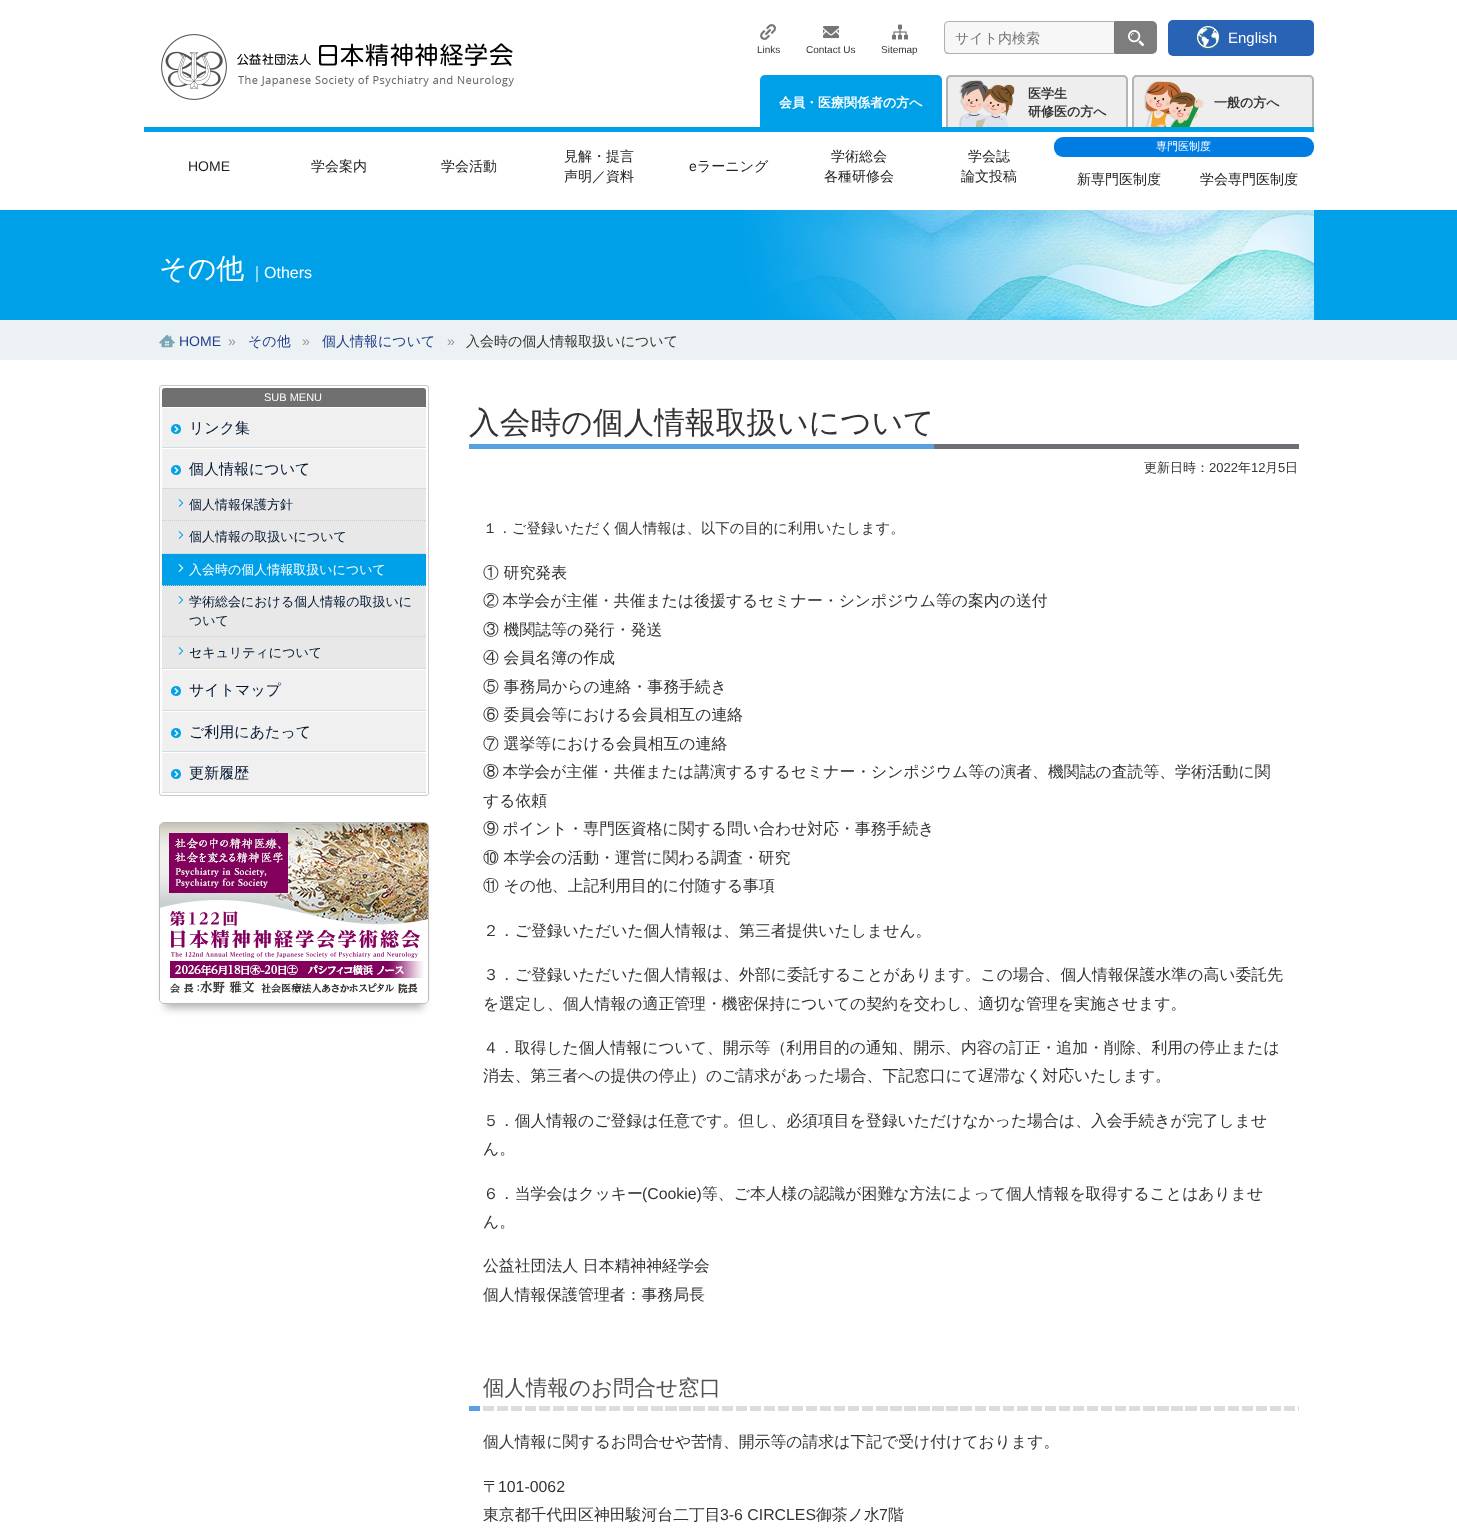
async function draw(canvas) {
	canvas.width = 1457;
	canvas.height = 1533;
	const c = canvas.getContext('2d');
	c.miterLimit = 4;
	c.fontKerning = 'normal';
	async function loadImage(src) {
		const img = new Image();
		img.src = src;
		await img.decode();
		return img;
	}

	c.fillStyle = '#fff';
	c.fillRect(0, 0, 1457, 1533);
	c.fillStyle = '#00a0e9';
	c.fillRect(144, 127, 1170, 5);
	c.drawImage(await loadImage('img1.png'), 161, 34, 353, 66);
	c.drawImage(await loadImage('img2.png'), 760, 24, 16, 16);
	c.font = '10px Liberation Sans';
	c.fillStyle = '#333';
	c.fillText('Links', 757, 53);
	c.drawImage(await loadImage('img3.png'), 823, 26, 16, 13);
	c.fillText('Contact Us', 806, 53);
	c.drawImage(await loadImage('img4.png'), 892, 24, 16, 16);
	c.fillText('Sitemap', 881, 53);
	c.fillStyle = '#f7f7f7';
	c.beginPath();
	c.roundRect(944, 21, 172, 33, [5, 0, 0, 5]);
	c.fill();
	c.fillStyle = '#afafaf';
	c.beginPath();
	c.moveTo(949, 21);
	c.bezierCurveTo(948, 21, 946, 22, 945, 22);
	c.lineTo(946, 23);
	c.bezierCurveTo(947, 22, 948, 22, 949, 22);
	c.lineTo(1114, 22);
	c.lineTo(1116, 21);
	c.closePath();
	c.fill();
	c.fillStyle = '#767676';
	c.beginPath();
	c.moveTo(1116, 21);
	c.lineTo(1114, 22);
	c.lineTo(1114, 53);
	c.lineTo(1116, 54);
	c.closePath();
	c.fill();
	c.fillStyle = '#afafaf';
	c.beginPath();
	c.moveTo(1116, 54);
	c.lineTo(1114, 53);
	c.lineTo(949, 53);
	c.bezierCurveTo(948, 53, 947, 52, 946, 52);
	c.lineTo(945, 53);
	c.bezierCurveTo(946, 54, 948, 54, 949, 54);
	c.closePath();
	c.fill();
	c.beginPath();
	c.moveTo(944, 26);
	c.lineTo(944, 49);
	c.bezierCurveTo(944, 50.5, 944.5, 52, 945.5, 52.5);
	c.lineTo(946, 52);
	c.bezierCurveTo(945.5, 51, 945, 50, 945, 49);
	c.lineTo(945, 26);
	c.bezierCurveTo(945, 25, 945.5, 24, 946, 23);
	c.lineTo(945.5, 22.5);
	c.bezierCurveTo(944.5, 23, 944, 24.5, 944, 26);
	c.closePath();
	c.fill();
	c.font = '500 14px WenQuanYi Zen Hei';
	c.fillStyle = '#757575';
	c.fillText('サイト内検索', 955, 43);
	c.drawImage(await loadImage('img5.png'), 1115, 21, 42, 33);
	c.fillStyle = '#2963b5';
	c.beginPath();
	c.roundRect(1168, 20, 146, 36, 5);
	c.fill();
	c.drawImage(await loadImage('img6.png'), 1196, 26, 24, 24);
	c.font = '15px Liberation Sans';
	c.fillStyle = '#fff';
	c.fillText('English', 1228, 43);
	c.fillStyle = '#00a0e9';
	c.beginPath();
	c.roundRect(760, 75, 182, 52, [5, 5, 0, 0]);
	c.fill();
	c.font = 'bold 13px WenQuanYi Zen Hei';
	c.fillStyle = '#fff';
	c.fillText('会員・医療関係者の方へ', 779, 107);
	c.fillStyle = '#eee';
	c.beginPath();
	c.roundRect(946, 75, 182, 52, [5, 5, 0, 0]);
	c.fill();
	c.drawImage(await loadImage('img7.png'), 959, 80, 56, 47);
	c.fillStyle = '#b5b5b5';
	c.beginPath();
	c.moveTo(951, 75);
	c.lineTo(1123, 75);
	c.bezierCurveTo(1126, 75, 1128, 77, 1128, 80);
	c.lineTo(1128, 127);
	c.lineTo(946, 127);
	c.lineTo(946, 80);
	c.bezierCurveTo(946, 77, 948, 75, 951, 75);
	c.closePath();
	c.moveTo(951, 77);
	c.lineTo(1123, 77);
	c.bezierCurveTo(1125, 77, 1126, 78, 1126, 80);
	c.lineTo(1126, 127);
	c.lineTo(948, 127);
	c.lineTo(948, 80);
	c.bezierCurveTo(948, 78, 949, 77, 951, 77);
	c.closePath();
	c.fill('evenodd');
	c.fillStyle = '#333';
	c.fillText('医学生', 1028, 98);
	c.fillText('研修医の方へ', 1028, 116);
	c.fillStyle = '#eee';
	c.beginPath();
	c.roundRect(1132, 75, 182, 52, [5, 5, 0, 0]);
	c.fill();
	c.drawImage(await loadImage('img8.png'), 1144, 81, 60, 46);
	c.fillStyle = '#b5b5b5';
	c.beginPath();
	c.moveTo(1137, 75);
	c.lineTo(1309, 75);
	c.bezierCurveTo(1312, 75, 1314, 77, 1314, 80);
	c.lineTo(1314, 127);
	c.lineTo(1132, 127);
	c.lineTo(1132, 80);
	c.bezierCurveTo(1132, 77, 1134, 75, 1137, 75);
	c.closePath();
	c.moveTo(1137, 77);
	c.lineTo(1309, 77);
	c.bezierCurveTo(1311, 77, 1312, 78, 1312, 80);
	c.lineTo(1312, 127);
	c.lineTo(1134, 127);
	c.lineTo(1134, 80);
	c.bezierCurveTo(1134, 78, 1135, 77, 1137, 77);
	c.closePath();
	c.fill('evenodd');
	c.fillStyle = '#333';
	c.fillText('一般の方へ', 1214, 107);
	c.fillStyle = '#007de3';
	c.beginPath();
	c.roundRect(1054, 137, 260, 20, 9);
	c.fill();
	c.font = '500 11px WenQuanYi Zen Hei';
	c.fillStyle = '#fff';
	c.fillText('専門医制度', 1156, 150);
	c.font = '14px Liberation Sans';
	c.fillStyle = '#222';
	c.fillText('HOME', 188, 171);
	c.font = '500 14px WenQuanYi Zen Hei';
	for (const [text, x, y] of [
		['学会案内', 311, 171],
		['学会活動', 441, 171],
		['見解・提言', 564, 161],
		['声明／資料', 564, 181],
	]) {
		c.fillText(text, x, y);
	}
	c.font = '14px Liberation Sans';
	c.fillText('e', 689, 171);
	c.font = '500 14px WenQuanYi Zen Hei';
	for (const [text, x, y] of [
		['ラーニング', 697, 171],
		['学術総会', 831, 161],
		['各種研修会', 824, 181],
		['学会誌', 968, 161],
		['論文投稿', 961, 181],
		['新専門医制度', 1077, 184],
		['学会専門医制度', 1200, 184],
	]) {
		c.fillText(text, x, y);
	}
	c.fillStyle = '#ecf2f4';
	c.fillRect(0, 320, 1457, 40);
	c.fillStyle = '#00a0e9';
	c.fillRect(0, 210, 1457, 110);
	c.drawImage(await loadImage('img9.png'), 744, 210, 570, 110);
	c.font = '500 28px WenQuanYi Zen Hei';
	c.fillStyle = '#fff';
	c.fillText('その他', 159, 278);
	c.font = '500 16px WenQuanYi Zen Hei';
	c.fillText('｜', 249, 278);
	c.font = '16px Liberation Sans';
	c.fillText('Others', 264, 278);
	c.drawImage(await loadImage('img10.png'), 159, 334, 16, 14);
	c.font = '14px Liberation Sans';
	c.fillStyle = '#233e8c';
	c.fillText('HOME', 179, 346);
	c.fillStyle = '#999';
	c.fillText('»', 228, 346);
	c.font = '500 14px WenQuanYi Zen Hei';
	c.fillStyle = '#233e8c';
	c.fillText('その他', 248, 346);
	c.font = '14px Liberation Sans';
	c.fillStyle = '#999';
	c.fillText('»', 302, 346);
	c.font = '500 14px WenQuanYi Zen Hei';
	c.fillStyle = '#233e8c';
	c.fillText('個人情報について', 322, 346);
	c.font = '14px Liberation Sans';
	c.fillStyle = '#999';
	c.fillText('»', 447, 346);
	c.font = '500 14px WenQuanYi Zen Hei';
	c.fillStyle = '#333';
	c.fillText('入会時の個人情報取扱いについて', 466, 346);
	c.fillStyle = '#6e6e74';
	c.fillRect(934, 444, 365, 5);
	c.fillStyle = '#59a0e3';
	c.fillRect(469, 444, 465, 5);
	c.font = '500 30.75px WenQuanYi Zen Hei';
	c.fillStyle = '#333';
	c.fillText('入会時の個人情報取扱いについて', 469, 433);
	c.font = '500 13px WenQuanYi Zen Hei';
	c.fillText('更新日時：', 1144, 472);
	c.font = '13px Liberation Sans';
	c.fillText('2022', 1209, 472);
	c.font = '500 13px WenQuanYi Zen Hei';
	c.fillText('年', 1238, 472);
	c.font = '13px Liberation Sans';
	c.fillText('12', 1251, 472);
	c.font = '500 13px WenQuanYi Zen Hei';
	c.fillText('月', 1265, 472);
	c.font = '13px Liberation Sans';
	c.fillText('5', 1278, 472);
	c.font = '500 13px WenQuanYi Zen Hei';
	c.fillText('日', 1285, 472);
	c.font = '500 14.4px WenQuanYi Zen Hei';
	c.fillText('１．ご登録いただく個人情報は、以下の目的に利用いたします。', 483, 533);
	c.font = '500 15.85px WenQuanYi Zen Hei';
	c.fillText('① 研究発表', 483, 578);
	c.wordSpacing = '-1px';
	c.fillText('② 本学会が主催・共催または後援するセミナー・シンポジウム等の案内の送付', 483, 606);
	c.wordSpacing = '0px';
	for (const [text, x, y] of [
		['③ 機関誌等の発行・発送', 483, 635],
		['④ 会員名簿の作成', 483, 663],
		['⑤ 事務局からの連絡・事務手続き', 483, 692],
		['⑥ 委員会等における会員相互の連絡', 483, 720],
		['⑦ 選挙等における会員相互の連絡', 483, 749],
	]) {
		c.fillText(text, x, y);
	}
	c.wordSpacing = '-1px';
	c.fillText('⑧ 本学会が主催・共催または講演するするセミナー・シンポジウム等の演者、機関誌の査読等、学術活動に関', 483, 777);
	c.wordSpacing = '0px';
	c.fillText('する依頼', 483, 806);
	c.wordSpacing = '-1px';
	c.fillText('⑨ ポイント・専門医資格に関する問い合わせ対応・事務手続き', 483, 834);
	c.wordSpacing = '0px';
	for (const [text, x, y] of [
		['⑩ 本学会の活動・運営に関わる調査・研究', 483, 863],
		['⑪ その他、上記利用目的に付随する事項', 483, 891],
		['２．ご登録いただいた個人情報は、第三者提供いたしません。', 483, 936],
		['３．ご登録いただいた個人情報は、外部に委託することがあります。この場合、個人情報保護水準の高い委託先', 483, 980],
		['を選定し、個人情報の適正管理・機密保持についての契約を交わし、適切な管理を実施させます。', 483, 1009],
		['４．取得した個人情報について、開示等（利用目的の通知、開示、内容の訂正・追加・削除、利用の停止または', 483, 1053],
		['消去、第三者への提供の停止）のご請求があった場合、下記窓口にて遅滞なく対応いたします。', 483, 1081],
		['５．個人情報のご登録は任意です。但し、必須項目を登録いただけなかった場合は、入会手続きが完了しませ', 483, 1126],
		['ん。', 483, 1154],
		['６．当学会はクッキー', 483, 1199],
	]) {
		c.fillText(text, x, y);
	}
	c.font = '15.85px Liberation Sans';
	c.fillText('(Cookie)', 642, 1199);
	c.font = '500 15.85px WenQuanYi Zen Hei';
	for (const [text, x, y] of [
		['等、ご本人様の認識が困難な方法によって個人情報を取得することはありませ', 702, 1199],
		['ん。', 483, 1227],
		['公益社団法人 日本精神神経学会', 483, 1271],
		['個人情報保護管理者：事務局長', 483, 1300],
	]) {
		c.fillText(text, x, y);
	}
	c.drawImage(await loadImage('img11.png'), 469, 1406, 830, 5);
	c.font = '500 21.5px WenQuanYi Zen Hei';
	c.fillStyle = '#505050';
	c.fillText('個人情報のお問合せ窓口', 483, 1395);
	c.font = '500 15.85px WenQuanYi Zen Hei';
	c.fillStyle = '#333';
	c.fillText('個人情報に関するお問合せや苦情、開示等の請求は下記で受け付けております。', 483, 1447);
	c.fillText('〒', 483, 1492);
	c.font = '15.85px Liberation Sans';
	c.fillText('101-0062', 498, 1492);
	c.font = '500 15.85px WenQuanYi Zen Hei';
	c.fillText('東京都千代田区神田駿河台二丁目', 483, 1520);
	c.font = '15.85px Liberation Sans';
	c.fillText('3-6 CIRCLES', 720, 1520);
	c.font = '500 15.85px WenQuanYi Zen Hei';
	c.fillText('御茶ノ水', 816, 1520);
	c.font = '15.85px Liberation Sans';
	c.fillText('7', 879, 1520);
	c.font = '500 15.85px WenQuanYi Zen Hei';
	c.fillText('階', 888, 1520);
	c.beginPath();
	c.roundRect(159.5, 385.5, 269, 410, 2.5);
	c.strokeStyle = '#c9c9c9';
	c.stroke();
	c.fillStyle = '#707070';
	c.beginPath();
	c.roundRect(162, 388, 264, 19, [3, 3, 0, 0]);
	c.fill();
	c.font = '11px Liberation Sans';
	c.fillStyle = '#fff';
	c.fillText('SUB MENU', 264, 401);
	c.fillStyle = '#d2dde2';
	c.fillRect(162, 447, 264, 1);
	c.fillStyle = '#f0f0f0';
	c.fillRect(162, 408, 264, 39);
	c.drawImage(await loadImage('img12.png'), 171, 424, 10, 10);
	c.font = '500 15px WenQuanYi Zen Hei';
	c.fillStyle = '#02162f';
	c.fillText('リンク集', 189, 433);
	c.fillStyle = '#d2dde2';
	c.fillRect(162, 488, 264, 1);
	c.fillStyle = '#f0f0f0';
	c.fillRect(162, 449, 264, 39);
	c.drawImage(await loadImage('img12.png'), 171, 465, 10, 10);
	c.fillStyle = '#02162f';
	c.fillText('個人情報について', 189, 474);
	c.fillStyle = '#e8e8e8';
	c.fillRect(162, 489, 264, 65);
	c.drawImage(await loadImage('img13.png'), 178, 499, 6, 8);
	c.beginPath();
	c.moveTo(162, 520.5);
	c.lineTo(426, 520.5);
	c.strokeStyle = '#ccc';
	c.setLineDash([1, 1]);
	c.stroke();
	c.font = '500 13px WenQuanYi Zen Hei';
	c.fillStyle = '#02162f';
	c.fillText('個人情報保護方針', 189, 509);
	c.drawImage(await loadImage('img13.png'), 178, 531, 6, 8);
	c.beginPath();
	c.moveTo(162, 553.5);
	c.lineTo(426, 553.5);
	c.stroke();
	c.fillText('個人情報の取扱いについて', 189, 541);
	c.fillStyle = '#00a0e9';
	c.fillRect(162, 554, 264, 32);
	c.drawImage(await loadImage('img14.png'), 178, 564, 6, 8);
	c.beginPath();
	c.moveTo(162, 585.5);
	c.lineTo(426, 585.5);
	c.stroke();
	c.fillStyle = '#fff';
	c.fillText('入会時の個人情報取扱いについて', 189, 574);
	c.fillStyle = '#e8e8e8';
	c.fillRect(162, 586, 264, 83);
	c.drawImage(await loadImage('img13.png'), 178, 596, 6, 8);
	c.beginPath();
	c.moveTo(162, 636.5);
	c.lineTo(426, 636.5);
	c.stroke();
	c.fillStyle = '#02162f';
	c.fillText('学術総会における個人情報の取扱いに', 189, 606);
	c.fillText('ついて', 189, 625);
	c.drawImage(await loadImage('img13.png'), 178, 647, 6, 8);
	c.beginPath();
	c.moveTo(162, 668.5);
	c.lineTo(426, 668.5);
	c.stroke();
	c.fillText('セキュリティについて', 189, 657);
	c.fillStyle = '#d2dde2';
	c.fillRect(162, 710, 264, 1);
	c.fillStyle = '#f0f0f0';
	c.fillRect(162, 670, 264, 40);
	c.drawImage(await loadImage('img12.png'), 171, 686, 10, 10);
	c.font = '500 15px WenQuanYi Zen Hei';
	c.fillStyle = '#02162f';
	c.fillText('サイトマップ', 189, 695);
	c.fillStyle = '#d2dde2';
	c.fillRect(162, 751, 264, 1);
	c.fillStyle = '#f0f0f0';
	c.fillRect(162, 712, 264, 39);
	c.drawImage(await loadImage('img12.png'), 171, 728, 10, 10);
	c.fillStyle = '#02162f';
	c.fillText('ご利用にあたって', 189, 737);
	c.fillStyle = '#d2dde2';
	c.fillRect(162, 792, 264, 1);
	c.fillStyle = '#f0f0f0';
	c.fillRect(162, 753, 264, 39);
	c.drawImage(await loadImage('img12.png'), 171, 769, 10, 10);
	c.fillStyle = '#02162f';
	c.fillText('更新履歴', 189, 778);
	c.fillStyle = '#0000004d';
	c.filter = 'blur(4px)';
	c.beginPath();
	c.rect(165, 838, 258, 170);
	c.fill();
	c.filter = 'none';
	c.beginPath();
	c.roundRect(159.5, 822.5, 269, 181, 4.5);
	c.strokeStyle = '#bbb';
	c.setLineDash([]);
	c.stroke();
	c.drawImage(await loadImage('img15.png'), 160, 823, 268, 180);
}

draw(document.querySelector('canvas'));
